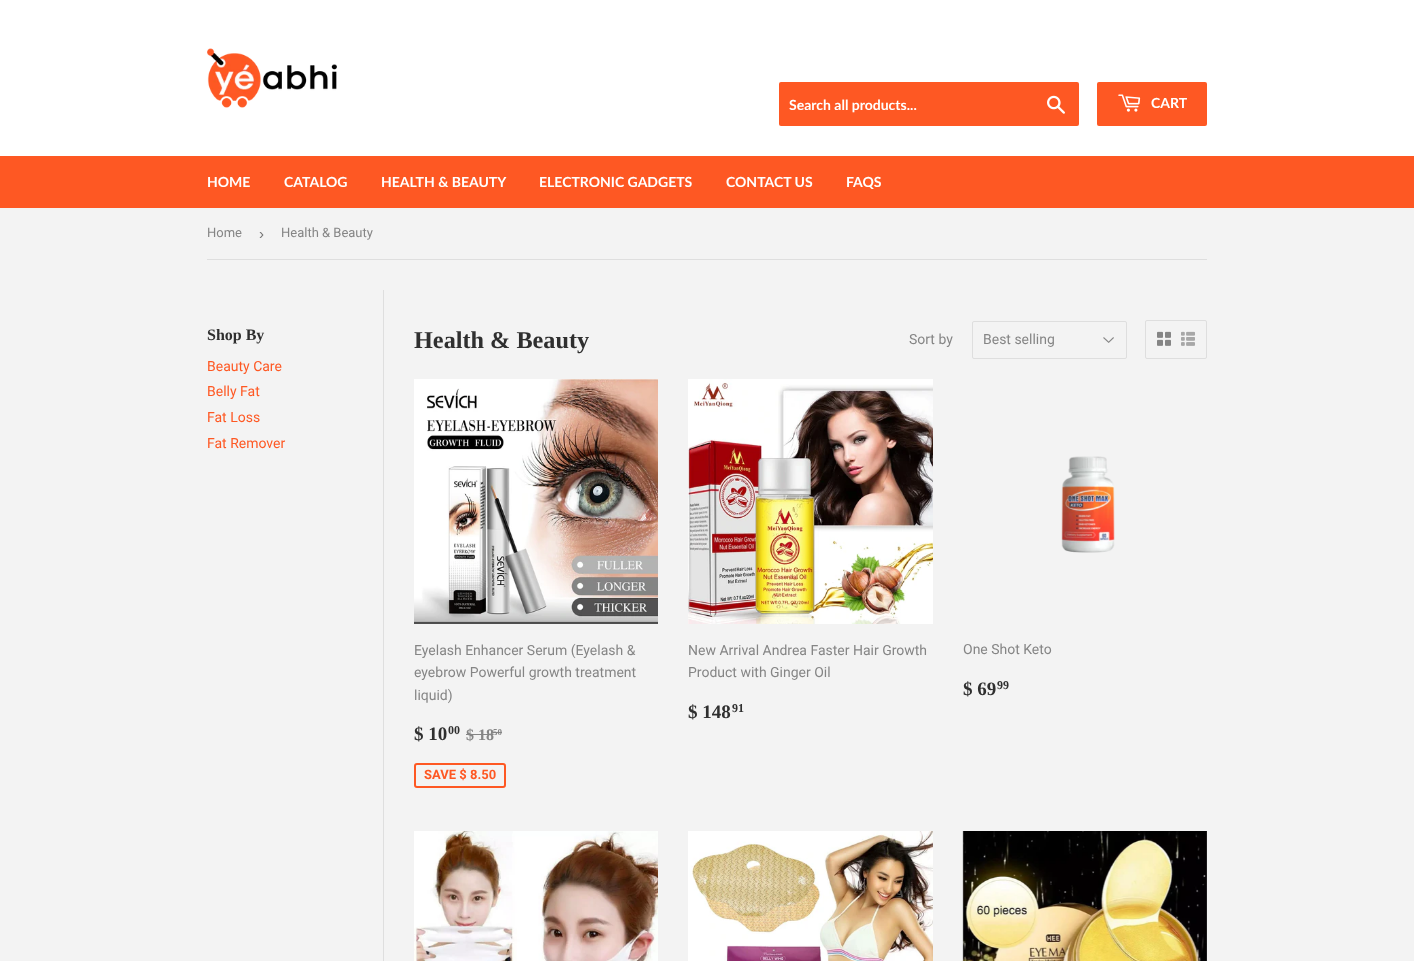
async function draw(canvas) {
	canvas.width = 1414;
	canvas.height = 961;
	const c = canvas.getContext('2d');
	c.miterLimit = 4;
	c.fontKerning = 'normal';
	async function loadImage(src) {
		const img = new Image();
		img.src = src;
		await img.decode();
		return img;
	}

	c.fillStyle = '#f3f3f3';
	c.fillRect(0, 0, 1414, 961);
	c.fillStyle = '#fff';
	c.fillRect(0, 0, 1414, 156);
	c.drawImage(await loadImage('img1.png'), 207, 48, 130, 60);
	c.fillStyle = '#fe5823';
	c.beginPath();
	c.roundRect(779, 82, 300, 44, 2);
	c.fill();
	c.font = 'bold 14px Lato';
	c.fillStyle = '#fff';
	c.fillText('Search all products...', 789, 110);
	c.drawImage(await loadImage('img2.png'), 1047, 95, 18, 19);
	c.fillStyle = '#fe5823';
	c.beginPath();
	c.roundRect(1097, 82, 110, 44, 2);
	c.fill();
	c.drawImage(await loadImage('img3.png'), 1118, 94, 23, 18);
	c.fillStyle = '#fff';
	c.fillText('CART', 1151, 108);
	c.fillStyle = '#fe5823';
	c.fillRect(0, 156, 1414, 52);
	c.fillStyle = '#fff';
	for (const [text, x, y] of [
		['HOME', 207, 187],
		['CATALOG', 284, 187],
		['HEALTH & BEAUTY', 381, 187],
		['ELECTRONIC GADGETS', 539, 187],
		['CONTACT US', 726, 187],
		['FAQS', 846, 187],
	]) {
		c.fillText(text, x, y);
	}
	c.fillStyle = '#dedede';
	c.fillRect(207, 259, 1000, 1);
	c.font = '13px Roboto';
	c.fillStyle = '#858585';
	c.fillText('Home', 207, 237);
	c.font = '15px Liberation Sans';
	c.fillStyle = '#767676';
	c.fillText('›', 259, 239);
	c.font = '13px Roboto';
	c.fillStyle = '#858585';
	c.fillText('Health & Beauty', 281, 237);
	c.font = 'bold 16px Liberation Serif';
	c.fillStyle = '#2f2f2f';
	c.fillText('Shop By', 207, 340);
	c.font = '14px Roboto';
	c.fillStyle = '#fe5823';
	for (const [text, x, y] of [
		['Beauty Care', 207, 371],
		['Belly Fat', 207, 396],
		['Fat Loss', 207, 422],
		['Fat Remover', 207, 448],
	]) {
		c.fillText(text, x, y);
	}
	c.fillStyle = '#dedede';
	c.fillRect(383, 290, 1, 671);
	c.font = 'bold 24.25px Liberation Serif';
	c.fillStyle = '#2f2f2f';
	c.fillText('Health & Beauty', 414, 348);
	c.font = '14px Roboto';
	c.fillStyle = '#858585';
	c.fillText('Sort by', 909, 344);
	c.drawImage(await loadImage('img4.png'), 1103, 337, 11, 6);
	c.beginPath();
	c.roundRect(972.5, 321.5, 154, 37, 1.5);
	c.strokeStyle = '#dedede';
	c.stroke();
	c.fillText('Best selling', 983, 344);
	c.beginPath();
	c.roundRect(1145.5, 320.5, 61, 38, 1.5);
	c.stroke();
	c.drawImage(await loadImage('img5.png'), 1157, 331, 14, 15);
	c.drawImage(await loadImage('img6.png'), 1181, 331, 14, 15);
	c.drawImage(await loadImage('img7.png'), 414, 379, 244, 245);
	for (const [text, x, y] of [
		['Eyelash Enhancer Serum (Eyelash &', 414, 655],
		['eyebrow Powerful growth treatment', 414, 677],
		['liquid)', 414, 700],
	]) {
		c.fillText(text, x, y);
	}
	c.font = 'bold 19px Liberation Serif';
	c.fillStyle = '#2f2f2f';
	c.fillText('$ 10', 414, 740);
	c.font = 'bold 12px Liberation Serif';
	c.fillText('00', 448, 734);
	c.font = 'bold 16px Liberation Serif';
	c.fillStyle = '#858585';
	c.fillText('$ 18', 466, 740);
	c.fillRect(466, 734, 27, 1);
	c.font = 'bold 9px Liberation Serif';
	c.fillText('50', 493, 735);
	c.fillRect(493, 732, 9, 1);
	c.beginPath();
	c.roundRect(415, 764, 90, 23, 2);
	c.strokeStyle = '#fe5823';
	c.lineWidth = 2;
	c.stroke();
	c.font = 'bold 13px Roboto';
	c.fillStyle = '#fe5823';
	c.fillText('SAVE $ 8.50', 424, 779);
	c.drawImage(await loadImage('img8.png'), 688, 379, 245, 245);
	c.font = '14px Roboto';
	c.fillStyle = '#858585';
	c.fillText('New Arrival Andrea Faster Hair Growth', 688, 655);
	c.fillText('Product with Ginger Oil', 688, 677);
	c.font = 'bold 19px Liberation Serif';
	c.fillStyle = '#2f2f2f';
	c.fillText('$ 148', 688, 718);
	c.font = 'bold 12px Liberation Serif';
	c.fillText('91', 732, 712);
	c.drawImage(await loadImage('img9.png'), 1061, 456, 54, 97);
	c.font = '14px Roboto';
	c.fillStyle = '#858585';
	c.fillText('One Shot Keto', 963, 654);
	c.font = 'bold 19px Liberation Serif';
	c.fillStyle = '#2f2f2f';
	c.fillText('$ 69', 963, 695);
	c.font = 'bold 12px Liberation Serif';
	c.fillText('99', 997, 689);
	c.drawImage(await loadImage('img10.png'), 414, 831, 244, 130);
	c.drawImage(await loadImage('img11.png'), 688, 831, 245, 130);
	c.drawImage(await loadImage('img12.png'), 962, 831, 245, 130);
}

draw(document.querySelector('canvas'));
